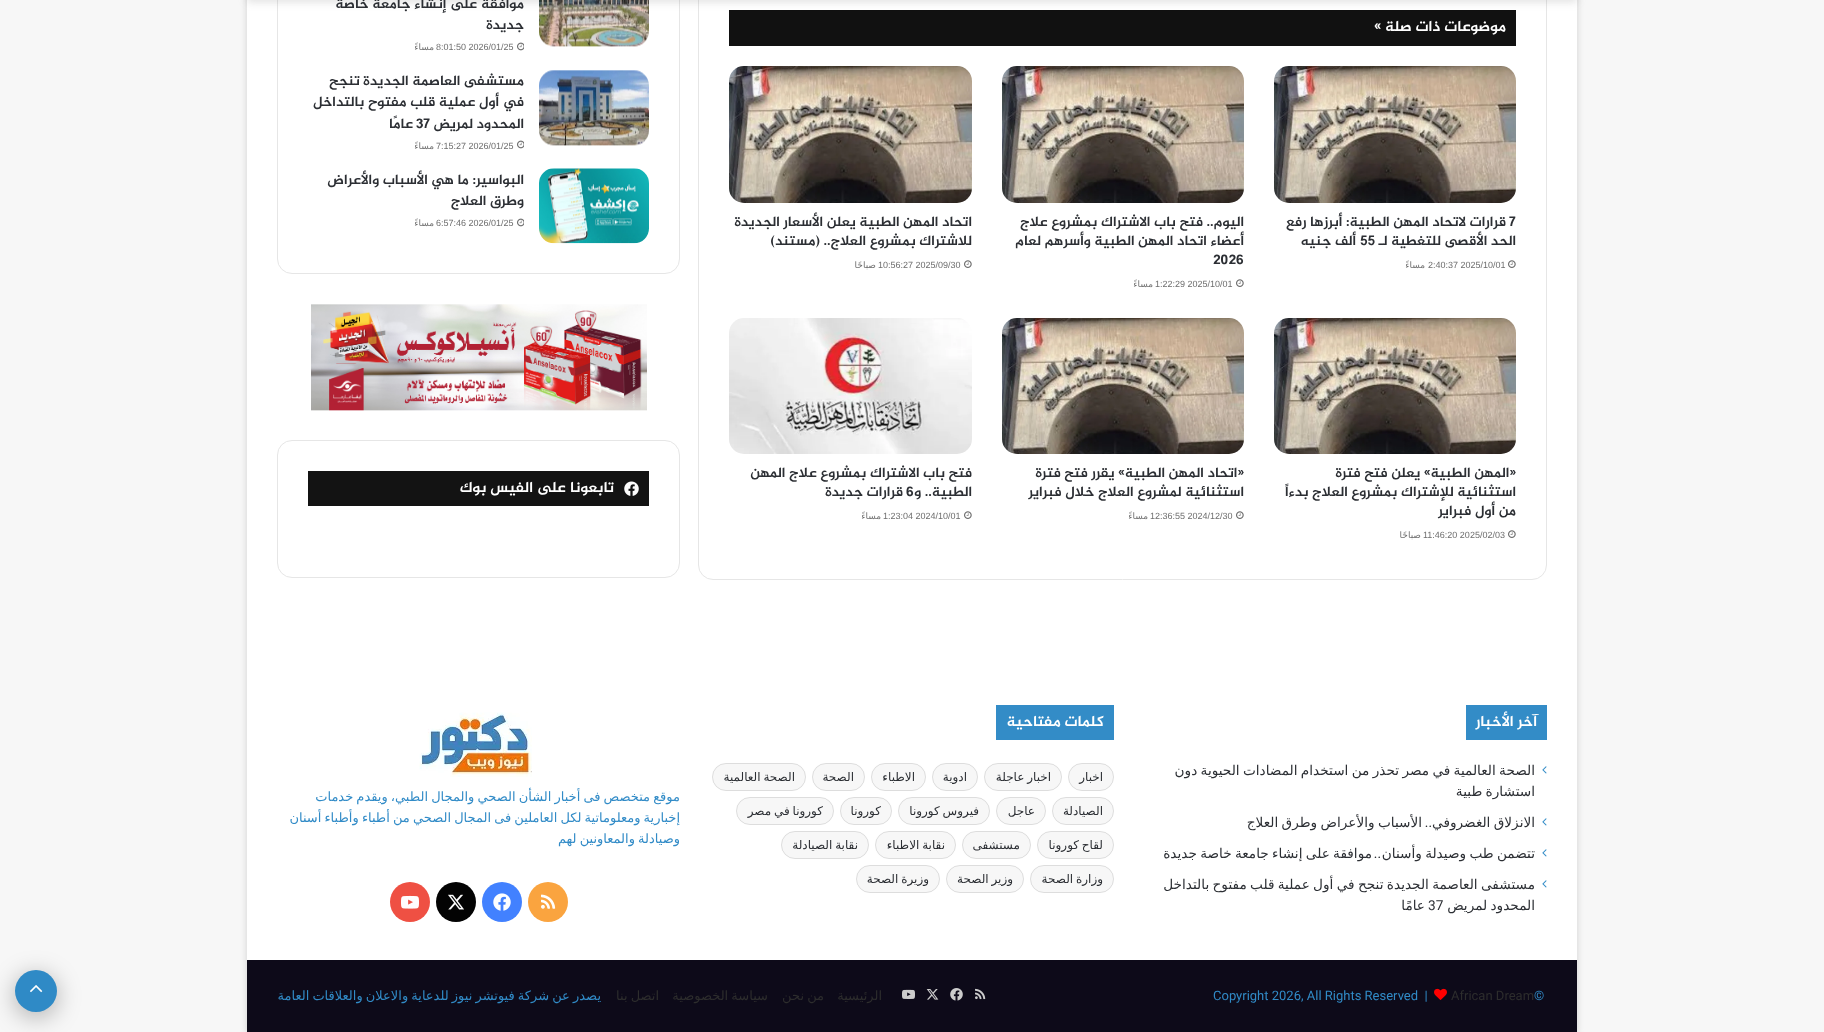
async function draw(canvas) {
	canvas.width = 1824;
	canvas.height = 1032;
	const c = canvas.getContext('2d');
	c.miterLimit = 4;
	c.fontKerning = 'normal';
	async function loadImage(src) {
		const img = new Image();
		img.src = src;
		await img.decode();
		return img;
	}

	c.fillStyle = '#f7f7f7';
	c.fillRect(0, 0, 1824, 1032);
	c.fillStyle = '#ababab80';
	c.filter = 'blur(3.5px)';
	c.beginPath();
	c.rect(247, -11, 1330, 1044);
	c.fill();
	c.filter = 'none';
	c.fillStyle = '#fff';
	c.fillRect(247, 0, 1330, 960);
	c.beginPath();
	c.roundRect(698.5, -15.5, 848, 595, 14.5);
	c.strokeStyle = '#e6e6e6';
	c.stroke();
	c.fillStyle = '#111';
	c.fillRect(729, 10, 787, 36);
	c.beginPath();
	c.roundRect(277.5, -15.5, 402, 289, 14.5);
	c.stroke();
	c.drawImage(await loadImage('img6.png'), 539, 0, 110, 47);
	c.fillStyle = '#63636333';
	c.filter = 'blur(4px)';
	c.beginPath();
	c.rect(247, -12, 1330, 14);
	c.fill();
	c.filter = 'none';
	c.direction = 'rtl';
	c.font = 'bold 15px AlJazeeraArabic';
	c.fillStyle = '#fff';
	c.fillText('موضوعات ذات صلة »', 1506, 31);
	c.drawImage(await loadImage('img1.png'), 1274, 66, 242, 137);
	c.direction = 'ltr';
	c.font = 'bold 14px AlJazeeraArabic';
	c.fillStyle = '#2c2f34';
	c.fillText('7', 1509, 226);
	c.direction = 'rtl';
	c.fillText('قرارات لاتحاد المهن الطبية: أبرزها رفع', 1506, 226);
	c.fillText('الحد الأقصى للتغطية لـ', 1516, 245);
	c.direction = 'ltr';
	c.fillText('55', 1360, 245);
	c.direction = 'rtl';
	c.fillText('ألف جنيه', 1356, 245);
	c.drawImage(await loadImage('img2.png'), 1508, 260, 8, 8);
	c.direction = 'ltr';
	c.font = '9px Liberation Sans';
	c.fillStyle = '#6e6e6e';
	c.fillText('2:40:37 2025/10/01', 1428, 268);
	c.direction = 'rtl';
	c.font = '9px DejaVu Sans';
	c.fillText('مساءً', 1425, 268);
	c.drawImage(await loadImage('img1.png'), 1002, 66, 242, 137);
	c.font = 'bold 14px AlJazeeraArabic';
	c.fillStyle = '#2c2f34';
	c.fillText('اليوم.. فتح باب الاشتراك بمشروع علاج', 1244, 226);
	c.fillText('أعضاء اتحاد المهن الطبية وأسرهم لعام', 1244, 245);
	c.direction = 'ltr';
	c.fillText('2026', 1213, 264);
	c.drawImage(await loadImage('img2.png'), 1236, 279, 8, 8);
	c.font = '9px Liberation Sans';
	c.fillStyle = '#6e6e6e';
	c.fillText('1:22:29 2025/10/01', 1155, 287);
	c.direction = 'rtl';
	c.font = '9px DejaVu Sans';
	c.fillText('مساءً', 1153, 287);
	c.drawImage(await loadImage('img3.png'), 729, 66, 243, 137);
	c.font = 'bold 14px AlJazeeraArabic';
	c.fillStyle = '#2c2f34';
	c.fillText('اتحاد المهن الطبية يعلن الأسعار الجديدة', 972, 226);
	c.fillText('للاشتراك بمشروع العلاج.. (مستند)', 972, 245);
	c.drawImage(await loadImage('img2.png'), 964, 260, 8, 8);
	c.direction = 'ltr';
	c.font = '9px Liberation Sans';
	c.fillStyle = '#6e6e6e';
	c.fillText('10:56:27 2025/09/30', 878, 268);
	c.direction = 'rtl';
	c.font = '9px DejaVu Sans';
	c.fillText('صباحًا', 876, 268);
	c.drawImage(await loadImage('img4.png'), 1274, 318, 242, 136);
	c.font = 'bold 14px AlJazeeraArabic';
	c.fillStyle = '#2c2f34';
	for (const [text, x, y] of [
		['«المهن الطبية» يعلن فتح فترة', 1516, 477],
		['استثنائية للإشتراك بمشروع العلاج بدءاً', 1516, 496],
		['من أول فبراير', 1516, 515],
	]) {
		c.fillText(text, x, y);
	}
	c.drawImage(await loadImage('img2.png'), 1508, 530, 8, 8);
	c.direction = 'ltr';
	c.font = '9px Liberation Sans';
	c.fillStyle = '#6e6e6e';
	c.fillText('11:46:20 2025/02/03', 1423, 538);
	c.direction = 'rtl';
	c.font = '9px DejaVu Sans';
	c.fillText('صباحًا', 1421, 538);
	c.drawImage(await loadImage('img4.png'), 1002, 318, 242, 136);
	c.font = 'bold 14px AlJazeeraArabic';
	c.fillStyle = '#2c2f34';
	c.fillText('«اتحاد المهن الطبية» يقرر فتح فترة', 1244, 477);
	c.fillText('استثنائية لمشروع العلاج خلال فبراير', 1244, 496);
	c.drawImage(await loadImage('img2.png'), 1236, 511, 8, 8);
	c.direction = 'ltr';
	c.font = '9px Liberation Sans';
	c.fillStyle = '#6e6e6e';
	c.fillText('12:36:55 2024/12/30', 1150, 519);
	c.direction = 'rtl';
	c.font = '9px DejaVu Sans';
	c.fillText('مساءً', 1148, 519);
	c.drawImage(await loadImage('img5.png'), 729, 318, 243, 136);
	c.font = 'bold 14px AlJazeeraArabic';
	c.fillStyle = '#2c2f34';
	c.fillText('فتح باب الاشتراك بمشروع علاج المهن', 972, 477);
	c.fillText('الطبية.. و', 972, 496);
	c.direction = 'ltr';
	c.fillText('6', 906, 496);
	c.direction = 'rtl';
	c.fillText('قرارات جديدة', 903, 496);
	c.drawImage(await loadImage('img2.png'), 964, 511, 8, 8);
	c.direction = 'ltr';
	c.font = '9px Liberation Sans';
	c.fillStyle = '#6e6e6e';
	c.fillText('1:23:04 2024/10/01', 883, 519);
	c.direction = 'rtl';
	c.font = '9px DejaVu Sans';
	c.fillText('مساءً', 881, 519);
	c.font = 'bold 14px AlJazeeraArabic';
	c.fillStyle = '#2c2f34';
	c.fillText('موافقة على إنشاء جامعة خاصة', 524, 8);
	c.fillText('جديدة', 524, 29);
	c.drawImage(await loadImage('img7.png'), 517, 42, 7, 9);
	c.direction = 'ltr';
	c.font = '9px Liberation Sans';
	c.fillStyle = '#6e6e6e';
	c.fillText('8:01:50 2026/01/25', 436, 50);
	c.direction = 'rtl';
	c.font = '9px DejaVu Sans';
	c.fillText('مساءً', 434, 50);
	c.drawImage(await loadImage('img8.png'), 539, 70, 110, 76);
	c.font = 'bold 14px AlJazeeraArabic';
	c.fillStyle = '#2c2f34';
	for (const [text, x, y] of [
		['مستشفى العاصمة الجديدة تنجح', 524, 85],
		['في أول عملية قلب مفتوح بالتداخل', 524, 106],
		['المحدود لمريض', 524, 128],
	]) {
		c.fillText(text, x, y);
	}
	c.direction = 'ltr';
	c.fillText('37', 416, 128);
	c.direction = 'rtl';
	c.fillText('عامًا', 413, 128);
	c.drawImage(await loadImage('img7.png'), 517, 140, 7, 9);
	c.direction = 'ltr';
	c.font = '9px Liberation Sans';
	c.fillStyle = '#6e6e6e';
	c.fillText('7:15:27 2026/01/25', 436, 149);
	c.direction = 'rtl';
	c.font = '9px DejaVu Sans';
	c.fillText('مساءً', 434, 149);
	c.drawImage(await loadImage('img9.png'), 539, 168, 110, 76);
	c.font = 'bold 14px AlJazeeraArabic';
	c.fillStyle = '#2c2f34';
	c.fillText('البواسير: ما هي الأسباب والأعراض', 524, 184);
	c.fillText('وطرق العلاج', 524, 205);
	c.drawImage(await loadImage('img7.png'), 517, 218, 7, 9);
	c.direction = 'ltr';
	c.font = '9px Liberation Sans';
	c.fillStyle = '#6e6e6e';
	c.fillText('6:57:46 2026/01/25', 436, 226);
	c.direction = 'rtl';
	c.font = '9px DejaVu Sans';
	c.fillText('مساءً', 434, 226);
	c.drawImage(await loadImage('img10.png'), 311, 304, 336, 107);
	c.beginPath();
	c.roundRect(277.5, 440.5, 402, 137, 14.5);
	c.stroke();
	c.fillStyle = '#131313';
	c.fillRect(308, 471, 341, 35);
	c.drawImage(await loadImage('img11.png'), 624, 481, 15, 15);
	c.font = 'bold 15px AlJazeeraArabic';
	c.fillStyle = '#fff';
	c.fillText('تابعونا على الفيس بوك', 614, 492);
	c.fillStyle = '#338cc7';
	c.fillRect(1466, 705, 81, 35);
	c.fillStyle = '#fff';
	c.fillText('آخر الأخبار', 1537, 726);
	c.drawImage(await loadImage('img12.png'), 1542, 766, 5, 8);
	c.wordSpacing = '-1px';
	c.font = '13.65px DejaVu Sans';
	c.fillStyle = '#2c2f34';
	c.fillText('الصحة العالمية في مصر تحذر من استخدام المضادات الحيوية دون', 1535, 775);
	c.fillText('استشارة طبية', 1535, 796);
	c.drawImage(await loadImage('img12.png'), 1542, 818, 5, 8);
	c.fillText('الانزلاق الغضروفي', 1535, 827);
	c.fillText('الأسباب والأعراض وطرق العلاج', 1422, 827);
	c.wordSpacing = '0px';
	c.font = '13.65px Roboto';
	c.fillText('..', 1432, 827);
	c.drawImage(await loadImage('img12.png'), 1542, 849, 5, 8);
	c.wordSpacing = '-1px';
	c.font = '13.65px DejaVu Sans';
	c.fillText('تتضمن طب وصيدلة وأسنان', 1535, 858);
	c.fillText('موافقة على إنشاء جامعة خاصة جديدة', 1372, 858);
	c.wordSpacing = '0px';
	c.font = '13.65px Roboto';
	c.fillText('..', 1381, 858);
	c.drawImage(await loadImage('img12.png'), 1542, 880, 5, 8);
	c.wordSpacing = '-1px';
	c.font = '13.65px DejaVu Sans';
	c.fillText('مستشفى العاصمة الجديدة تنجح في أول عملية قلب مفتوح بالتداخل', 1535, 889);
	c.fillText('المحدود لمريض', 1535, 910);
	c.wordSpacing = '0px';
	c.direction = 'ltr';
	c.font = '13.65px Roboto';
	c.fillText('37', 1428, 910);
	c.direction = 'rtl';
	c.font = '13.65px DejaVu Sans';
	c.fillText('عامًا', 1425, 910);
	c.fillStyle = '#338cc7';
	c.fillRect(996, 705, 118, 35);
	c.font = 'bold 15px AlJazeeraArabic';
	c.fillStyle = '#fff';
	c.fillText('كلمات مفتاحية', 1104, 726);
	c.fillStyle = '#f7f7f7';
	c.beginPath();
	c.roundRect(1068, 763, 46, 28, 14);
	c.fill();
	c.beginPath();
	c.roundRect(1068.5, 763.5, 45, 27, 13.5);
	c.strokeStyle = '#0303031a';
	c.stroke();
	c.font = '12px DejaVu Sans';
	c.fillStyle = '#2c2f34';
	c.fillText('اخبار', 1103, 781);
	c.fillStyle = '#f7f7f7';
	c.beginPath();
	c.roundRect(984, 763, 78, 28, 14);
	c.fill();
	c.beginPath();
	c.roundRect(984.5, 763.5, 77, 27, 13.5);
	c.stroke();
	c.wordSpacing = '-1px';
	c.fillStyle = '#2c2f34';
	c.fillText('اخبار عاجلة', 1051, 781);
	c.fillStyle = '#f7f7f7';
	c.beginPath();
	c.roundRect(932, 763, 46, 28, 14);
	c.fill();
	c.beginPath();
	c.roundRect(932.5, 763.5, 45, 27, 13.5);
	c.stroke();
	c.wordSpacing = '0px';
	c.fillStyle = '#2c2f34';
	c.fillText('ادوية', 967, 781);
	c.fillStyle = '#f7f7f7';
	c.beginPath();
	c.roundRect(871, 763, 55, 28, 14);
	c.fill();
	c.beginPath();
	c.roundRect(871.5, 763.5, 54, 27, 13.5);
	c.stroke();
	c.fillStyle = '#2c2f34';
	c.fillText('الاطباء', 915, 781);
	c.fillStyle = '#f7f7f7';
	c.beginPath();
	c.roundRect(812, 763, 53, 28, 14);
	c.fill();
	c.beginPath();
	c.roundRect(812.5, 763.5, 52, 27, 13.5);
	c.stroke();
	c.fillStyle = '#2c2f34';
	c.fillText('الصحة', 854, 781);
	c.fillStyle = '#f7f7f7';
	c.beginPath();
	c.roundRect(712, 763, 94, 28, 14);
	c.fill();
	c.beginPath();
	c.roundRect(712.5, 763.5, 93, 27, 13.5);
	c.stroke();
	c.wordSpacing = '-1px';
	c.fillStyle = '#2c2f34';
	c.fillText('الصحة العالمية', 795, 781);
	c.fillStyle = '#f7f7f7';
	c.beginPath();
	c.roundRect(1052, 797, 62, 28, 14);
	c.fill();
	c.beginPath();
	c.roundRect(1052.5, 797.5, 61, 27, 13.5);
	c.stroke();
	c.wordSpacing = '0px';
	c.fillStyle = '#2c2f34';
	c.fillText('الصيادلة', 1103, 815);
	c.fillStyle = '#f7f7f7';
	c.beginPath();
	c.roundRect(996, 797, 50, 28, 14);
	c.fill();
	c.beginPath();
	c.roundRect(996.5, 797.5, 49, 27, 13.5);
	c.stroke();
	c.fillStyle = '#2c2f34';
	c.fillText('عاجل', 1035, 815);
	c.fillStyle = '#f7f7f7';
	c.beginPath();
	c.roundRect(898, 797, 92, 28, 14);
	c.fill();
	c.beginPath();
	c.roundRect(898.5, 797.5, 91, 27, 13.5);
	c.stroke();
	c.wordSpacing = '-1px';
	c.fillStyle = '#2c2f34';
	c.fillText('فيروس كورونا', 979, 815);
	c.fillStyle = '#f7f7f7';
	c.beginPath();
	c.roundRect(840, 797, 52, 28, 14);
	c.fill();
	c.beginPath();
	c.roundRect(840.5, 797.5, 51, 27, 13.5);
	c.stroke();
	c.wordSpacing = '0px';
	c.fillStyle = '#2c2f34';
	c.fillText('كورونا', 881, 815);
	c.fillStyle = '#f7f7f7';
	c.beginPath();
	c.roundRect(736, 797, 98, 28, 14);
	c.fill();
	c.beginPath();
	c.roundRect(736.5, 797.5, 97, 27, 13.5);
	c.stroke();
	c.wordSpacing = '-1px';
	c.fillStyle = '#2c2f34';
	c.fillText('كورونا في مصر', 823, 815);
	c.fillStyle = '#f7f7f7';
	c.beginPath();
	c.roundRect(1037, 831, 77, 28, 14);
	c.fill();
	c.beginPath();
	c.roundRect(1037.5, 831.5, 76, 27, 13.5);
	c.stroke();
	c.fillStyle = '#2c2f34';
	c.fillText('لقاح كورونا', 1103, 849);
	c.fillStyle = '#f7f7f7';
	c.beginPath();
	c.roundRect(962, 831, 69, 28, 14);
	c.fill();
	c.beginPath();
	c.roundRect(962.5, 831.5, 68, 27, 13.5);
	c.stroke();
	c.wordSpacing = '0px';
	c.fillStyle = '#2c2f34';
	c.fillText('مستشفى', 1020, 849);
	c.fillStyle = '#f7f7f7';
	c.beginPath();
	c.roundRect(875, 831, 81, 28, 14);
	c.fill();
	c.beginPath();
	c.roundRect(875.5, 831.5, 80, 27, 13.5);
	c.stroke();
	c.wordSpacing = '-1px';
	c.fillStyle = '#2c2f34';
	c.fillText('نقابة الاطباء', 945, 849);
	c.fillStyle = '#f7f7f7';
	c.beginPath();
	c.roundRect(781, 831, 88, 28, 14);
	c.fill();
	c.beginPath();
	c.roundRect(781.5, 831.5, 87, 27, 13.5);
	c.stroke();
	c.fillStyle = '#2c2f34';
	c.fillText('نقابة الصيادلة', 858, 849);
	c.fillStyle = '#f7f7f7';
	c.beginPath();
	c.roundRect(1030, 865, 84, 28, 14);
	c.fill();
	c.beginPath();
	c.roundRect(1030.5, 865.5, 83, 27, 13.5);
	c.stroke();
	c.fillStyle = '#2c2f34';
	c.fillText('وزارة الصحة', 1103, 883);
	c.fillStyle = '#f7f7f7';
	c.beginPath();
	c.roundRect(946, 865, 78, 28, 14);
	c.fill();
	c.beginPath();
	c.roundRect(946.5, 865.5, 77, 27, 13.5);
	c.stroke();
	c.fillStyle = '#2c2f34';
	c.fillText('وزير الصحة', 1013, 883);
	c.fillStyle = '#f7f7f7';
	c.beginPath();
	c.roundRect(856, 865, 84, 28, 14);
	c.fill();
	c.beginPath();
	c.roundRect(856.5, 865.5, 83, 27, 13.5);
	c.stroke();
	c.fillStyle = '#2c2f34';
	c.fillText('وزيرة الصحة', 929, 883);
	c.drawImage(await loadImage('img13.png'), 419, 712, 113, 65);
	c.save();
	c.beginPath();
	c.rect(277, 705, 403, 144);
	c.clip();
	c.font = '13px DejaVu Sans';
	c.fillStyle = '#318bc7';
	for (const [text, x, y] of [
		['موقع متخصص فى أخبار الشأن الصحي والمجال الطبي، ويقدم خدمات', 680, 801],
		['إخبارية ومعلوماتية لكل العاملين فى المجال الصحي من أطباء وأطباء أسنان', 680, 822],
		['وصيادلة والمعاونين لهم', 680, 843],
	]) {
		c.fillText(text, x, y);
	}
	c.restore();
	c.fillStyle = '#faa43f';
	c.beginPath();
	c.arc(548, 902, 20, 0, 2 * Math.PI);
	c.fill();
	c.drawImage(await loadImage('img14.png'), 541, 894, 15, 15);
	c.fillStyle = '#4281ff';
	c.beginPath();
	c.arc(502, 902, 20, 0, 2 * Math.PI);
	c.fill();
	c.drawImage(await loadImage('img15.png'), 493, 893, 18, 18);
	c.fillStyle = '#030303';
	c.beginPath();
	c.arc(456, 902, 20, 0, 2 * Math.PI);
	c.fill();
	c.drawImage(await loadImage('img16.png'), 448, 894, 16, 16);
	c.fillStyle = '#ef5043';
	c.beginPath();
	c.arc(410, 902, 20, 0, 2 * Math.PI);
	c.fill();
	c.drawImage(await loadImage('img17.png'), 401, 895, 18, 14);
	c.fillStyle = '#0d0a19';
	c.fillRect(247, 960, 1330, 72);
	c.wordSpacing = '0px';
	c.direction = 'ltr';
	c.font = '13px Roboto';
	c.fillStyle = '#318bc7';
	c.fillText('©', 1534, 1000);
	c.fillStyle = '#2d2d2d';
	c.fillText('African Dream', 1451, 1000);
	c.drawImage(await loadImage('img18.png'), 1434, 988, 13, 12);
	c.fillStyle = '#318bc7';
	c.fillText('Copyright 2026, All Rights Reserved  |', 1213, 1000);
	c.drawImage(await loadImage('img19.png'), 975, 988, 11, 12);
	c.drawImage(await loadImage('img20.png'), 950, 988, 13, 13);
	c.drawImage(await loadImage('img21.png'), 926, 989, 13, 11);
	c.drawImage(await loadImage('img22.png'), 902, 989, 13, 10);
	c.direction = 'rtl';
	c.font = '13px DejaVu Sans';
	c.fillStyle = '#2d2d2d';
	c.fillText('الرئيسية', 882, 1000);
	c.wordSpacing = '-1px';
	for (const [text, x, y] of [
		['من نحن', 824, 1000],
		['سياسة الخصوصية', 768, 1000],
		['اتصل بنا', 659, 1000],
	]) {
		c.fillText(text, x, y);
	}
	c.fillStyle = '#318bc7';
	c.fillText('يصدر عن شركة فيوتشر نيوز للدعاية والاعلان والعلاقات العامة', 601, 1000);
	c.fillStyle = '#0000004d';
	c.filter = 'blur(12.5px)';
	c.beginPath();
	c.roundRect(15, 975, 42, 42, 21);
	c.fill();
	c.filter = 'none';
	c.fillStyle = '#2f8ac6';
	c.beginPath();
	c.arc(36, 991, 21, 0, 2 * Math.PI);
	c.fill();
	c.drawImage(await loadImage('img23.png'), 30, 985, 13, 8);
}

draw(document.querySelector('canvas'));
